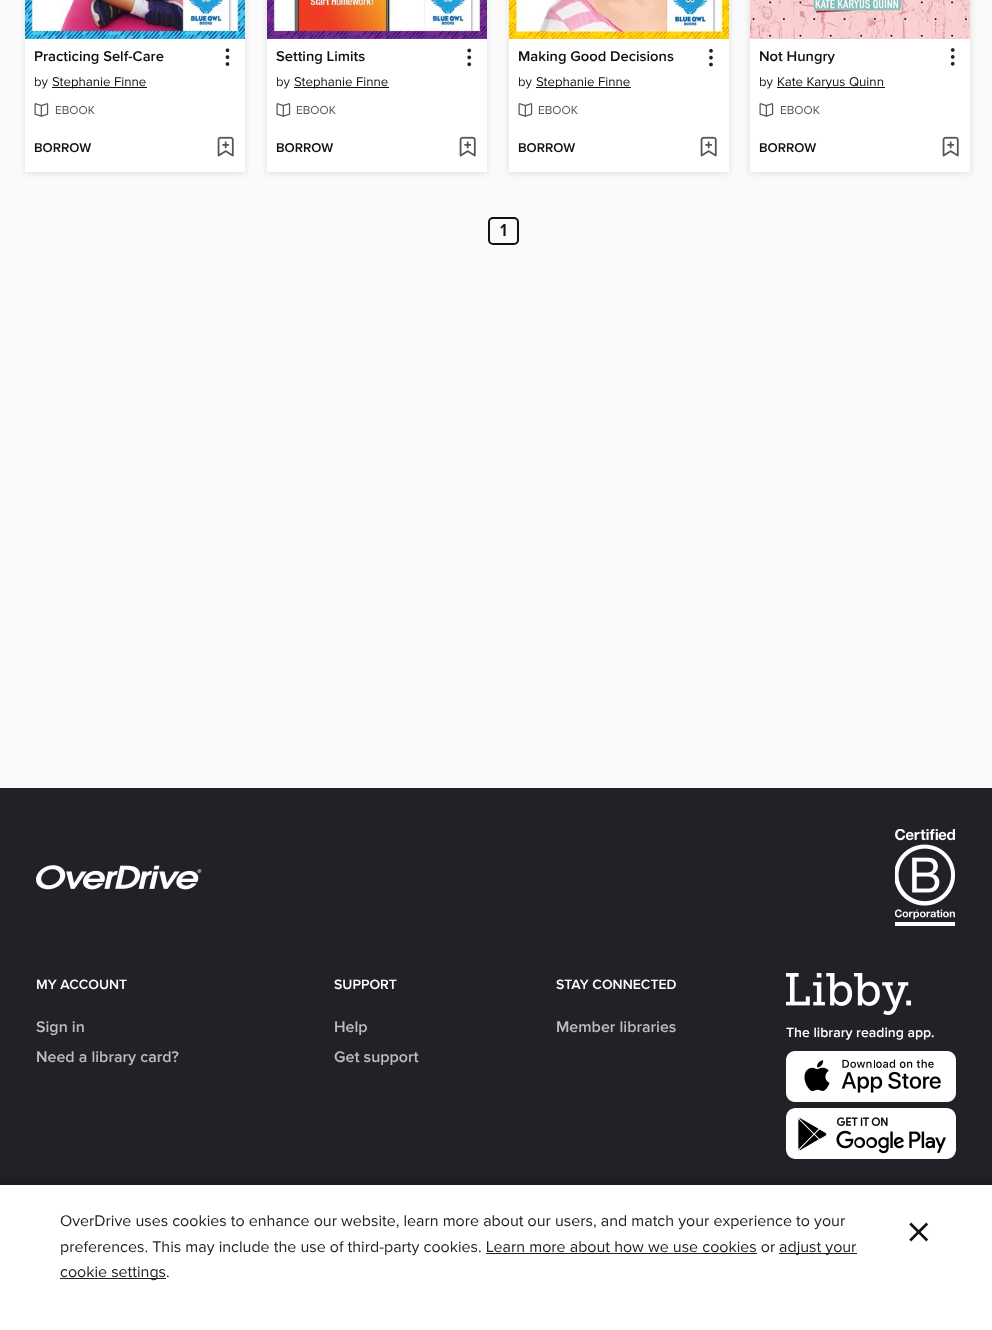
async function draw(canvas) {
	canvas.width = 992;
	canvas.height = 1330;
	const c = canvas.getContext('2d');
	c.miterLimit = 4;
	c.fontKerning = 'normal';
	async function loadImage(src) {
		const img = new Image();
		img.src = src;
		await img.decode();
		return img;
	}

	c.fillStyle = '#fafafa';
	c.fillRect(0, 0, 992, 1330);
	c.fillStyle = '#ddd';
	c.filter = 'blur(3px)';
	c.beginPath();
	c.rect(25, -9, 220, 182);
	c.fill();
	c.filter = 'none';
	c.fillStyle = '#fff';
	c.fillRect(25, 39, 220, 133);
	c.drawImage(await loadImage('img1.png'), 25, 0, 220, 39);
	c.font = '600 14.75px Proxima Nova';
	c.fillStyle = '#111';
	c.fillText('Practicing Self-Care', 34, 61);
	c.drawImage(await loadImage('img2.png'), 225, 48, 5, 18);
	c.font = '13.25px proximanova';
	c.fillStyle = '#222';
	c.fillText('by', 34, 86);
	c.fillStyle = '#111';
	c.fillRect(52, 87, 95, 1);
	c.fillText('Stephanie Finne', 52, 86);
	c.drawImage(await loadImage('img3.png'), 34, 103, 15, 14);
	c.font = '12px proximanova';
	c.fillStyle = '#555';
	c.fillText('EBOOK', 55, 114);
	c.font = '600 13.25px Proxima Nova';
	c.fillStyle = '#111';
	c.fillText('BORROW', 34, 152);
	c.drawImage(await loadImage('img4.png'), 217, 136, 17, 21);
	c.fillStyle = '#ddd';
	c.filter = 'blur(3px)';
	c.beginPath();
	c.rect(267, -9, 220, 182);
	c.fill();
	c.filter = 'none';
	c.fillStyle = '#fff';
	c.fillRect(267, 39, 220, 133);
	c.drawImage(await loadImage('img5.png'), 267, 0, 220, 39);
	c.font = '600 14.75px Proxima Nova';
	c.fillStyle = '#111';
	c.fillText('Setting Limits', 276, 61);
	c.drawImage(await loadImage('img6.png'), 467, 48, 5, 19);
	c.font = '13.25px proximanova';
	c.fillStyle = '#222';
	c.fillText('by', 276, 86);
	c.fillStyle = '#111';
	c.fillRect(294, 87, 95, 1);
	c.fillText('Stephanie Finne', 294, 86);
	c.drawImage(await loadImage('img3.png'), 276, 103, 15, 14);
	c.font = '12px proximanova';
	c.fillStyle = '#555';
	c.fillText('EBOOK', 296, 114);
	c.font = '600 13.25px Proxima Nova';
	c.fillStyle = '#111';
	c.fillText('BORROW', 276, 152);
	c.drawImage(await loadImage('img4.png'), 459, 136, 17, 21);
	c.fillStyle = '#ddd';
	c.filter = 'blur(3px)';
	c.beginPath();
	c.rect(509, -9, 220, 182);
	c.fill();
	c.filter = 'none';
	c.fillStyle = '#fff';
	c.fillRect(509, 39, 220, 133);
	c.drawImage(await loadImage('img7.png'), 509, 0, 220, 39);
	c.font = '600 14.75px Proxima Nova';
	c.fillStyle = '#111';
	c.fillText('Making Good Decisions', 518, 61);
	c.drawImage(await loadImage('img8.png'), 709, 48, 4, 19);
	c.font = '13.25px proximanova';
	c.fillStyle = '#222';
	c.fillText('by', 518, 86);
	c.fillStyle = '#111';
	c.fillRect(536, 87, 95, 1);
	c.fillText('Stephanie Finne', 536, 86);
	c.drawImage(await loadImage('img3.png'), 518, 103, 15, 14);
	c.font = '12px proximanova';
	c.fillStyle = '#555';
	c.fillText('EBOOK', 538, 114);
	c.font = '600 13.25px Proxima Nova';
	c.fillStyle = '#111';
	c.fillText('BORROW', 518, 152);
	c.drawImage(await loadImage('img4.png'), 700, 136, 17, 21);
	c.fillStyle = '#ddd';
	c.filter = 'blur(3px)';
	c.beginPath();
	c.rect(750, -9, 220, 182);
	c.fill();
	c.filter = 'none';
	c.fillStyle = '#fff';
	c.fillRect(750, 39, 220, 133);
	c.drawImage(await loadImage('img9.png'), 750, 0, 220, 39);
	c.font = '600 14.75px Proxima Nova';
	c.fillStyle = '#111';
	c.fillText('Not Hungry', 759, 61);
	c.drawImage(await loadImage('img10.png'), 950, 48, 5, 18);
	c.font = '13.25px proximanova';
	c.fillStyle = '#222';
	c.fillText('by', 759, 86);
	c.fillStyle = '#111';
	c.fillRect(777, 87, 108, 1);
	c.fillText('Kate Karyus Quinn', 777, 86);
	c.drawImage(await loadImage('img3.png'), 759, 103, 15, 14);
	c.font = '12px proximanova';
	c.fillStyle = '#555';
	c.fillText('EBOOK', 780, 114);
	c.font = '600 13.25px Proxima Nova';
	c.fillStyle = '#111';
	c.fillText('BORROW', 759, 152);
	c.drawImage(await loadImage('img4.png'), 942, 136, 17, 21);
	c.beginPath();
	c.roundRect(489, 218, 29, 26, 4);
	c.strokeStyle = '#111';
	c.lineWidth = 2;
	c.stroke();
	c.font = '600 18px Proxima Nova';
	c.fillText('1', 500, 236);
	c.fillStyle = '#212127';
	c.fillRect(0, 788, 992, 397);
	c.drawImage(await loadImage('img11.png'), 36, 865, 166, 25);
	c.drawImage(await loadImage('img12.png'), 895, 829, 60, 97);
	c.font = '600 14px Proxima Nova';
	c.fillStyle = '#fff';
	c.fillText('MY ACCOUNT', 36, 989);
	c.font = '600 16px Proxima Nova';
	c.fillStyle = '#bcbcbe';
	c.fillText('Sign in', 36, 1032);
	c.fillText('Need a library card?', 36, 1062);
	c.font = '600 14px Proxima Nova';
	c.fillStyle = '#fff';
	c.fillText('SUPPORT', 334, 989);
	c.font = '600 16px Proxima Nova';
	c.fillStyle = '#bcbcbe';
	c.fillText('Help', 334, 1032);
	c.fillText('Get support', 334, 1062);
	c.font = '600 14px Proxima Nova';
	c.fillStyle = '#fff';
	c.fillText('STAY CONNECTED', 556, 989);
	c.font = '600 16px Proxima Nova';
	c.fillStyle = '#bcbcbe';
	c.fillText('Member libraries', 556, 1032);
	c.drawImage(await loadImage('img13.png'), 786, 973, 125, 42);
	c.font = '600 14px Proxima Nova';
	c.fillStyle = '#fff';
	c.fillText('The library reading app.', 786, 1037);
	c.drawImage(await loadImage('img14.png'), 786, 1051, 170, 51);
	c.drawImage(await loadImage('img15.png'), 786, 1108, 170, 51);
	c.fillStyle = '#00000026';
	c.filter = 'blur(2.5px)';
	c.beginPath();
	c.rect(-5, 1180, 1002, 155);
	c.fill();
	c.filter = 'none';
	c.fillStyle = '#fff';
	c.fillRect(0, 1185, 992, 145);
	c.font = '16px proximanova';
	c.fillStyle = '#222';
	c.fillText('OverDrive uses cookies to enhance our website, learn more about our users, and match your experience to your', 60, 1226);
	c.fillText('preferences. This may include the use of third-party cookies. Learn more about how we use cookies or', 60, 1252);
	c.fillRect(486, 1253, 271, 1);
	c.fillRect(779, 1253, 78, 1);
	c.fillText('adjust your', 779, 1252);
	c.fillRect(60, 1278, 106, 1);
	c.fillText('cookie settings.', 60, 1277);
	c.font = '51px proximanova';
	c.fillStyle = '#111';
	c.fillText('×', 906, 1249);
}

draw(document.querySelector('canvas'));
